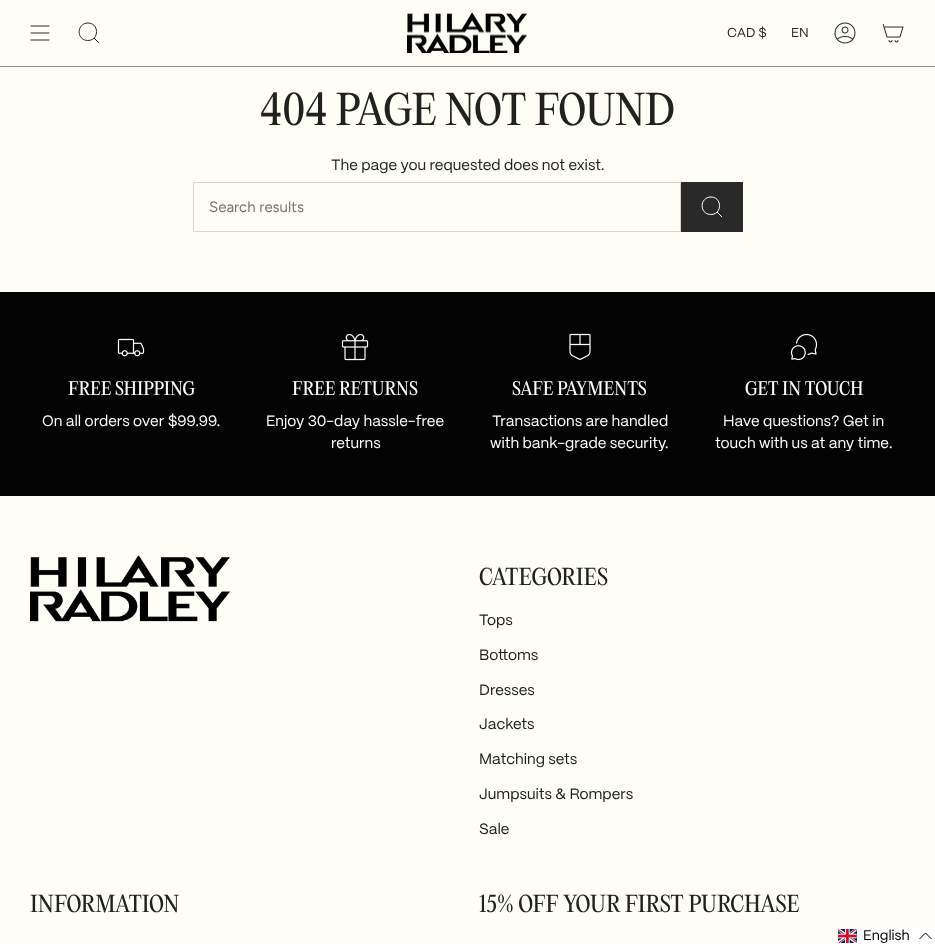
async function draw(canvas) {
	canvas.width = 935;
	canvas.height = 944;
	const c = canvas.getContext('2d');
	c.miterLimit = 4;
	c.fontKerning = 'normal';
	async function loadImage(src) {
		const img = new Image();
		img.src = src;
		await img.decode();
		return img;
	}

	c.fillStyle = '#fefef7';
	c.fillRect(0, 0, 935, 944);
	c.beginPath();
	c.moveTo(31, 26);
	c.lineTo(49, 26);
	c.moveTo(31, 33);
	c.lineTo(49, 33);
	c.moveTo(31, 40);
	c.lineTo(49, 40);
	c.strokeStyle = '#292929';
	c.lineCap = 'round';
	c.lineJoin = 'round';
	c.stroke();
	c.beginPath();
	c.moveTo(88, 23);
	c.bezierCurveTo(99.5, 23, 99.5, 41, 87.5, 40.5);
	c.bezierCurveTo(76, 40, 76.5, 23, 88, 23);
	c.closePath();
	c.moveTo(94, 38);
	c.lineTo(99, 43);
	c.lineCap = 'butt';
	c.lineJoin = 'miter';
	c.stroke();
	c.drawImage(await loadImage('img1.png'), 407, 13, 120, 40);
	c.font = '13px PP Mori';
	c.fillStyle = '#292929';
	c.fillText('CAD $', 727, 37);
	c.fillText('EN', 791, 37);
	c.drawImage(await loadImage('img2.png'), 834, 22, 22, 22);
	c.drawImage(await loadImage('img3.png'), 882, 24, 22, 19);
	c.fillStyle = '#949490';
	c.fillRect(0, 66, 935, 1);
	c.font = '40.25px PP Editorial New';
	c.fillStyle = '#212121';
	c.fillText('404 PAGE NOT FOUND', 260, 125);
	c.font = '15px PP Mori';
	c.fillText('The page you requested does not exist.', 331, 170);
	c.strokeStyle = '#ddd5cc';
	c.strokeRect(193.5, 182.5, 487, 49);
	c.font = '15px Figtree';
	c.fillStyle = '#757575';
	c.fillText('Search results', 209, 212);
	c.fillStyle = '#292929';
	c.fillRect(681, 182, 62, 50);
	c.beginPath();
	c.moveTo(711, 197);
	c.bezierCurveTo(722.5, 197, 722.5, 215, 710.5, 214.5);
	c.bezierCurveTo(699, 214, 699.5, 197, 711, 197);
	c.closePath();
	c.moveTo(717, 212);
	c.lineTo(722, 217);
	c.strokeStyle = '#fff';
	c.stroke();
	c.fillStyle = '#030303';
	c.fillRect(0, 292, 935, 204);
	c.drawImage(await loadImage('img4.png'), 117, 338, 28, 19);
	c.font = '17.25px PP Editorial New';
	c.fillStyle = '#fff';
	c.fillText('FREE SHIPPING', 68, 395);
	c.font = '15px PP Mori';
	c.fillText('On all orders over $99.99.', 42, 426);
	c.drawImage(await loadImage('img5.png'), 341, 333, 28, 28);
	c.font = '17.25px PP Editorial New';
	c.fillText('FREE RETURNS', 292, 395);
	c.font = '15px PP Mori';
	c.fillText('Enjoy 30-day hassle-free', 266, 426);
	c.fillText('returns', 331, 448);
	c.drawImage(await loadImage('img6.png'), 569, 333, 22, 27);
	c.font = '17.25px PP Editorial New';
	c.fillText('SAFE PAYMENTS', 512, 395);
	c.font = '15px PP Mori';
	c.fillText('Transactions are handled', 492, 426);
	c.fillText('with bank-grade security.', 490, 448);
	c.drawImage(await loadImage('img7.png'), 790, 333, 28, 28);
	c.font = '17.25px PP Editorial New';
	c.fillText('GET IN TOUCH', 745, 395);
	c.font = '15px PP Mori';
	c.fillText('Have questions? Get in', 723, 426);
	c.fillText('touch with us at any time.', 715, 448);
	c.drawImage(await loadImage('img8.png'), 30, 555, 200, 67);
	c.font = '21.5px PP Editorial New';
	c.fillStyle = '#212121';
	c.fillText('CATEGORIES', 479, 585);
	c.font = '15px PP Mori';
	for (const [text, x, y] of [
		['Tops', 479, 625],
		['Bottoms', 479, 660],
		['Dresses', 479, 695],
		['Jackets', 479, 729],
		['Matching sets', 479, 764],
		['Jumpsuits & Rompers', 479, 799],
		['Sale', 479, 834],
	]) {
		c.fillText(text, x, y);
	}
	c.font = '21.5px PP Editorial New';
	c.fillText('INFORMATION', 30, 912);
	c.fillText('15% OFF YOUR FIRST PURCHASE', 479, 912);
	c.fillStyle = '#fff';
	c.fillRect(836, 929, 99, 15);
	c.drawImage(await loadImage('img9.png'), 838, 929, 19, 14);
	c.font = '14px PP Mori';
	c.fillStyle = '#000';
	c.fillText('English', 863, 940);
	c.beginPath();
	c.moveTo(931.5, 939);
	c.lineTo(925.5, 933);
	c.lineTo(919.5, 939);
	c.strokeStyle = '#000';
	c.stroke();
}

draw(document.querySelector('canvas'));
